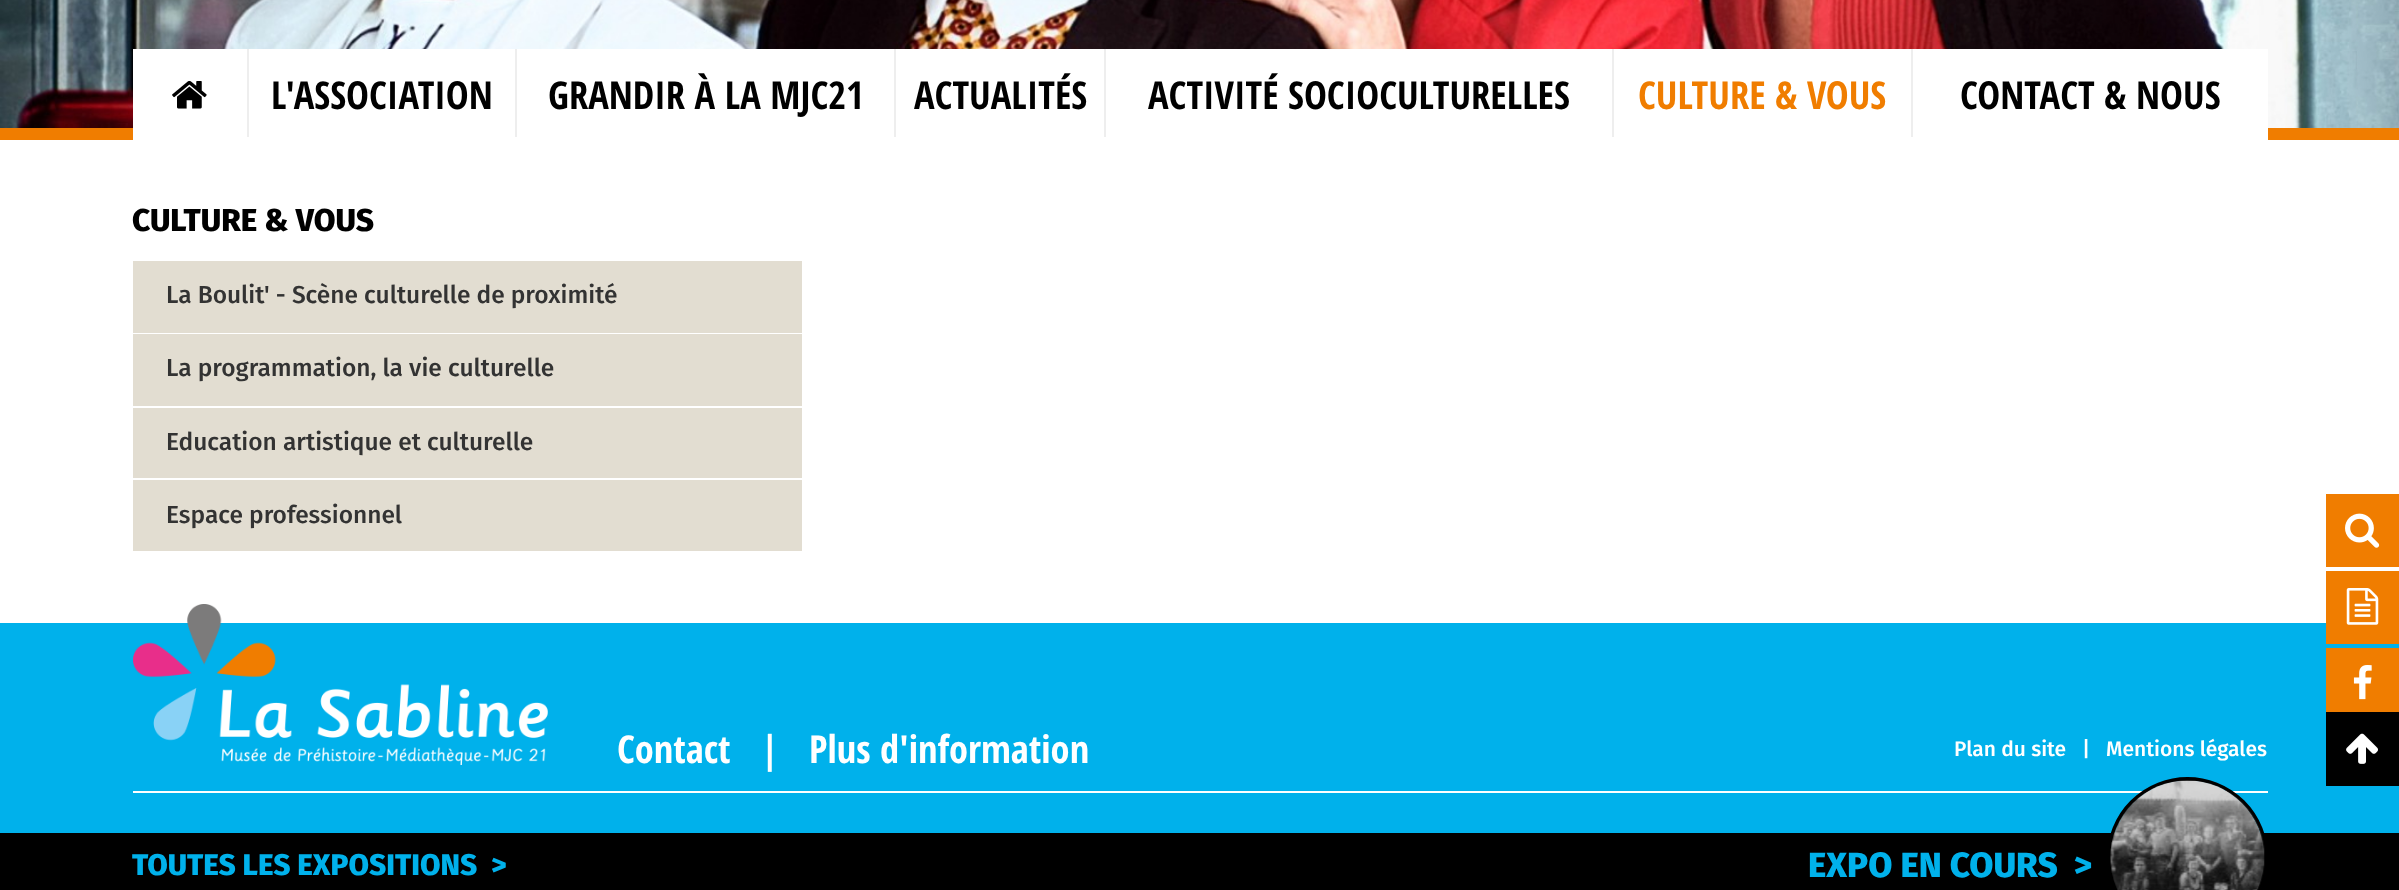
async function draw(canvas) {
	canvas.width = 2399;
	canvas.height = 890;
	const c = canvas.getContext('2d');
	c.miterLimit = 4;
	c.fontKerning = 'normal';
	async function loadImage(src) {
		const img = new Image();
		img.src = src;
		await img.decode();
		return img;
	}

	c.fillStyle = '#fff';
	c.fillRect(0, 0, 2399, 890);
	c.drawImage(await loadImage('img1.png'), 0, 0, 2399, 128);
	c.fillStyle = '#f07d00';
	c.fillRect(0, 128, 2399, 12);
	c.fillStyle = '#fff';
	c.fillRect(133, 49, 2135, 91);
	c.drawImage(await loadImage('img2.png'), 172, 80, 35, 29);
	c.fillStyle = '#eee';
	c.fillRect(247, 49, 2, 88);
	c.font = 'bold 38.5px Open Sans Condensed';
	c.fillStyle = '#000';
	c.fillText('L\'ASSOCIATION', 271, 109);
	c.fillStyle = '#eee';
	c.fillRect(515, 49, 2, 88);
	c.fillStyle = '#000';
	c.fillText('GRANDIR À LA MJC21', 548, 109);
	c.fillStyle = '#eee';
	c.fillRect(894, 49, 2, 88);
	c.fillStyle = '#000';
	c.fillText('ACTUALITÉS', 914, 109);
	c.fillStyle = '#eee';
	c.fillRect(1104, 49, 2, 88);
	c.fillStyle = '#000';
	c.fillText('ACTIVITÉ SOCIOCULTURELLES', 1148, 109);
	c.fillStyle = '#eee';
	c.fillRect(1612, 49, 2, 88);
	c.fillStyle = '#f07d00';
	c.fillText('CULTURE & VOUS', 1638, 109);
	c.fillStyle = '#eee';
	c.fillRect(1911, 49, 2, 88);
	c.fillStyle = '#000';
	c.fillText('CONTACT & NOUS', 1960, 109);
	c.font = '800 31.5px Fira Sans';
	c.fillText('CULTURE & VOUS', 132, 231);
	c.fillStyle = '#e2ddd1';
	c.fillRect(133, 261, 669, 72);
	c.font = '500 24.5px Fira Sans';
	c.fillStyle = '#333';
	c.fillText('La Boulit\' - Scène culturelle de proximité', 166, 303);
	c.fillStyle = '#e2ddd1';
	c.fillRect(133, 334, 669, 72);
	c.fillStyle = '#333';
	c.fillText('La programmation, la vie culturelle', 166, 376);
	c.fillStyle = '#e2ddd1';
	c.fillRect(133, 408, 669, 70);
	c.fillStyle = '#333';
	c.fillText('Education artistique et culturelle', 166, 450);
	c.fillStyle = '#e2ddd1';
	c.fillRect(133, 480, 669, 71);
	c.fillStyle = '#333';
	c.fillText('Espace professionnel', 166, 523);
	c.fillStyle = '#00b1eb';
	c.fillRect(0, 623, 2399, 210);
	c.fillStyle = '#fff';
	c.fillRect(133, 791, 2135, 2);
	c.drawImage(await loadImage('img3.png'), 133, 604, 415, 161);
	c.font = 'bold 38.5px Open Sans Condensed';
	for (const [text, x, y] of [
		['Contact', 617, 763],
		['|', 760, 763],
		['Plus d\'information', 809, 763],
	]) {
		c.fillText(text, x, y);
	}
	c.font = '500 21px Fira Sans';
	for (const [text, x, y] of [
		['Plan du site', 1954, 756],
		['|', 2082, 756],
		['Mentions légales', 2106, 756],
	]) {
		c.fillText(text, x, y);
	}
	c.fillStyle = '#000';
	c.fillRect(0, 833, 2399, 57);
	c.font = '800 29.75px Fira Sans';
	c.fillStyle = '#00b1eb';
	c.fillText('TOUTES LES EXPOSITIONS  >', 132, 875);
	c.font = '800 35px Fira Sans';
	c.fillText('EXPO EN COURS  >', 1808, 877);
	c.beginPath();
	c.arc(2187.5, 857.5, 78.5, 0, 2 * Math.PI);
	c.strokeStyle = '#000';
	c.lineWidth = 4;
	c.stroke();
	c.drawImage(await loadImage('img4.png'), 2110, 780, 155, 110);
	c.fillStyle = '#f07d00';
	c.fillRect(2326, 494, 73, 73);
	c.drawImage(await loadImage('img5.png'), 2345, 513, 35, 35);
	c.fillRect(2326, 571, 73, 73);
	c.drawImage(await loadImage('img6.png'), 2346, 588, 33, 37);
	c.fillRect(2326, 648, 73, 64);
	c.drawImage(await loadImage('img7.png'), 2353, 665, 19, 35);
	c.fillStyle = '#000';
	c.fillRect(2326, 712, 73, 74);
	c.drawImage(await loadImage('img8.png'), 2346, 733, 32, 31);
}

draw(document.querySelector('canvas'));
